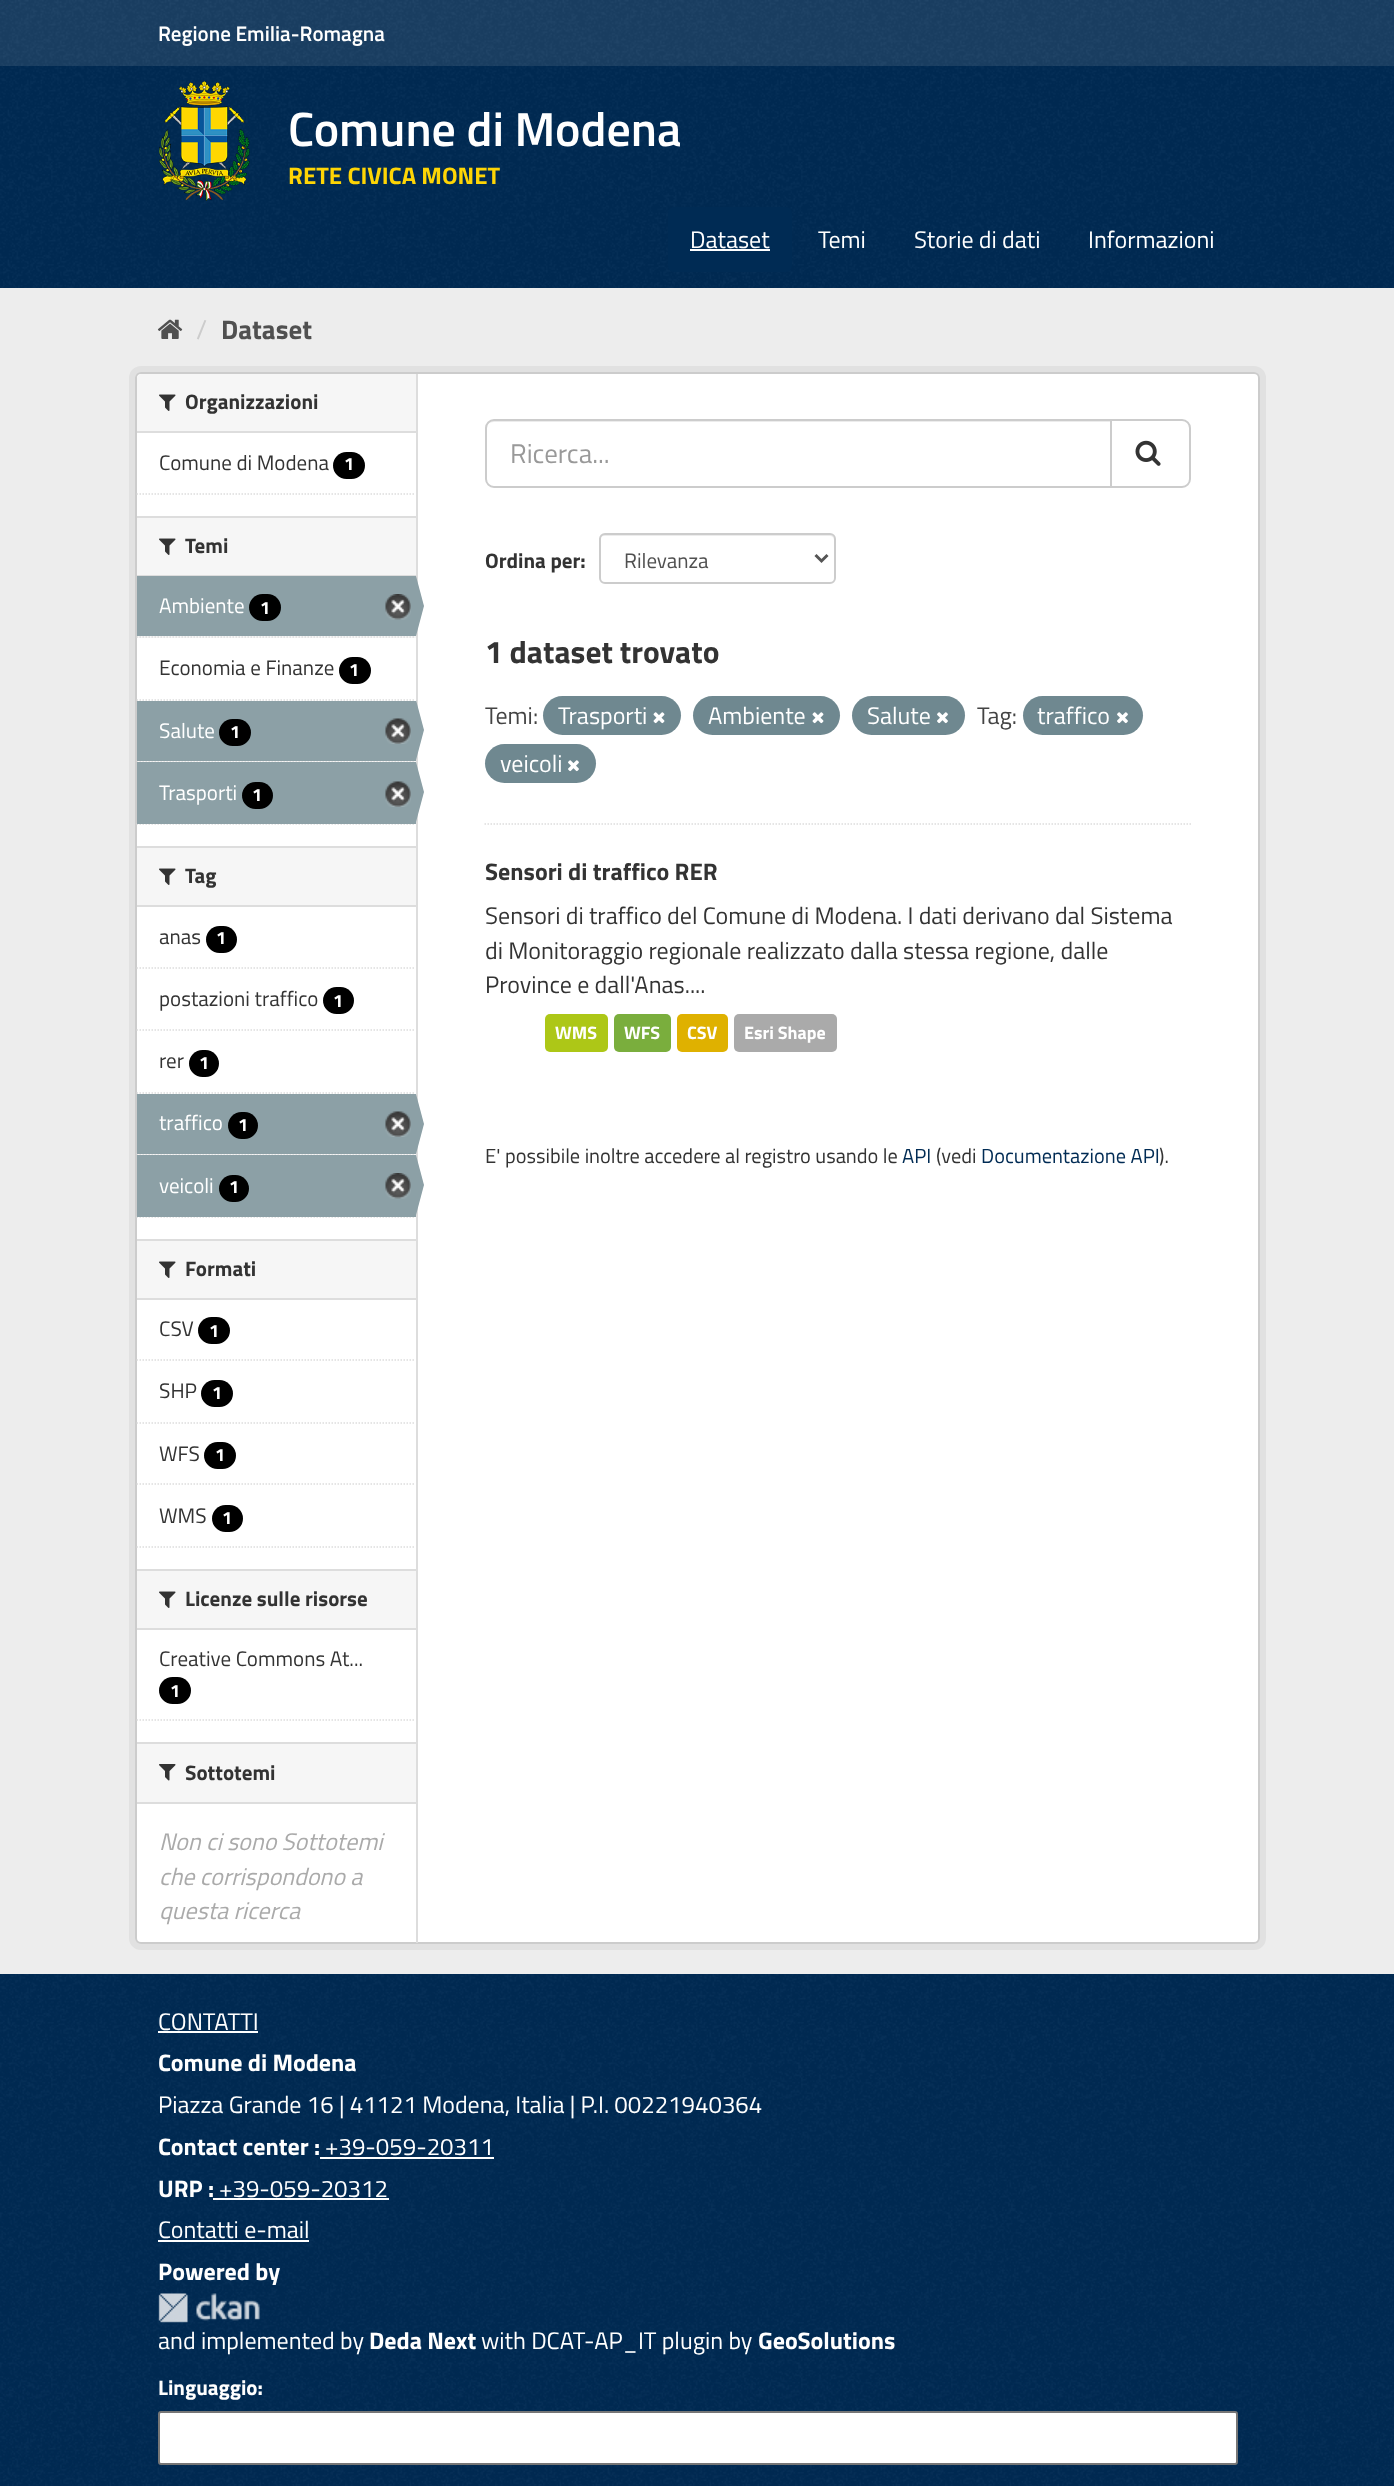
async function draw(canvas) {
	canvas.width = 1394;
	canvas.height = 2486;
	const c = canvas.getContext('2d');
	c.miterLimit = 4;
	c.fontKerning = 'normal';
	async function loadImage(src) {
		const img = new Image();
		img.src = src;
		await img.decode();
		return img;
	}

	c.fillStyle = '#1a3f64';
	c.fillRect(0, 0, 1394, 2486);
	c.drawImage(await loadImage('img1.png'), 0, 0, 1394, 66);
	c.font = '600 21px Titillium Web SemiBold';
	c.fillStyle = '#fff';
	c.fillText('Regione Emilia-Romagna', 158, 41);
	c.fillStyle = '#002b54';
	c.fillRect(0, 66, 1394, 222);
	c.drawImage(await loadImage('img2.png'), 0, 66, 1394, 222);
	c.drawImage(await loadImage('img3.png'), 159, 81, 91, 120);
	c.font = '600 48px Titillium Web SemiBold';
	c.fillStyle = '#fff';
	c.fillText('Comune di Modena', 288, 146);
	c.font = 'bold 24px Titillium Web';
	c.fillStyle = '#fed505';
	c.fillText('RETE CIVICA MONET', 288, 184);
	c.fillStyle = '#002b54';
	c.beginPath();
	c.roundRect(668, 207, 124, 65, 6);
	c.fill();
	c.font = '24px Titillium Web';
	c.fillStyle = '#fff';
	c.fillText('Dataset', 690, 248);
	c.fillRect(690, 249, 80, 2);
	for (const [text, x, y] of [
		['Temi', 818, 248],
		['Storie di dati', 914, 248],
		['Informazioni', 1088, 248],
	]) {
		c.fillText(text, x, y);
	}
	c.fillStyle = '#ededed';
	c.fillRect(0, 288, 1394, 1686);
	c.drawImage(await loadImage('img4.png'), 157, 319, 26, 20);
	c.font = '27px Titillium Web';
	c.fillStyle = '#ccc';
	c.fillText('/', 196, 339);
	c.font = 'bold 27px Titillium Web';
	c.fillStyle = '#505050';
	c.fillText('Dataset', 221, 339);
	c.beginPath();
	c.roundRect(132, 369, 1131, 1578, 9);
	c.strokeStyle = '#e1e1e1';
	c.lineWidth = 6;
	c.stroke();
	c.fillStyle = '#fff';
	c.beginPath();
	c.roundRect(136, 373, 1123, 1570, 5);
	c.fill();
	c.strokeStyle = '#ccc';
	c.lineWidth = 2;
	c.stroke();
	c.fillStyle = '#f6f6f6';
	c.beginPath();
	c.roundRect(137, 374, 279, 58, [5, 0, 0, 0]);
	c.fill();
	c.fillStyle = '#ddd';
	c.fillRect(137, 431, 279, 2);
	c.drawImage(await loadImage('img5.png'), 159, 394, 17, 17);
	c.font = 'bold 21px Titillium Web';
	c.fillStyle = '#333';
	c.fillText('Organizzazioni', 185, 409);
	c.font = '21px Titillium Web';
	c.fillText('Comune di Modena', 159, 470);
	c.fillStyle = '#000';
	c.beginPath();
	c.roundRect(333, 452, 32, 27, 13.5);
	c.fill();
	c.font = 'bold 18px Titillium Web';
	c.fillStyle = '#fff';
	c.fillText('1', 344, 470);
	c.beginPath();
	c.moveTo(136.5, 494);
	c.lineTo(415.5, 494);
	c.strokeStyle = '#ddd';
	c.lineWidth = 1.5;
	c.setLineDash([1.5, 1.5]);
	c.stroke();
	for (const [x, y, w, h, color] of [
		[137, 518, 279, 57, '#f6f6f6'],
		[137, 516, 279, 2, '#ddd'],
		[137, 575, 279, 1, '#ddd'],
	]) {
		c.fillStyle = color;
		c.fillRect(x, y, w, h);
	}
	c.drawImage(await loadImage('img5.png'), 159, 538, 17, 17);
	c.font = 'bold 21px Titillium Web';
	c.fillStyle = '#333';
	c.fillText('Temi', 185, 553);
	c.fillStyle = '#f6f6f6';
	c.fillRect(137, 636, 279, 2);
	c.beginPath();
	c.moveTo(136.5, 637);
	c.lineTo(415.5, 637);
	c.stroke();
	c.fillStyle = '#8ca0a6';
	c.fillRect(137, 576, 279, 60);
	c.font = '21px Titillium Web';
	c.fillStyle = '#fff';
	c.fillText('Ambiente', 159, 613);
	c.fillStyle = '#000';
	c.beginPath();
	c.roundRect(249, 594, 32, 27, 13.5);
	c.fill();
	c.font = 'bold 18px Titillium Web';
	c.fillStyle = '#fff';
	c.fillText('1', 260, 614);
	c.drawImage(await loadImage('img6.png'), 385, 594, 26, 26);
	c.fillStyle = '#ddd';
	c.fillRect(416, 374, 2, 1569);
	c.fillStyle = '#8ca0a6';
	c.beginPath();
	c.moveTo(416, 636);
	c.lineTo(416, 576);
	c.lineTo(424, 606);
	c.closePath();
	c.fill();
	c.beginPath();
	c.moveTo(136.5, 700);
	c.lineTo(415.5, 700);
	c.stroke();
	c.font = '21px Titillium Web';
	c.fillStyle = '#333';
	c.fillText('Economia e Finanze', 159, 675);
	c.fillStyle = '#000';
	c.beginPath();
	c.roundRect(339, 657, 32, 27, 13.5);
	c.fill();
	c.font = 'bold 18px Titillium Web';
	c.fillStyle = '#fff';
	c.fillText('1', 349, 676);
	c.fillStyle = '#f6f6f6';
	c.fillRect(137, 761, 279, 1);
	c.beginPath();
	c.moveTo(136.5, 761);
	c.lineTo(415.5, 761);
	c.stroke();
	c.fillStyle = '#8ca0a6';
	c.fillRect(137, 701, 279, 60);
	c.font = '21px Titillium Web';
	c.fillStyle = '#fff';
	c.fillText('Salute', 159, 738);
	c.fillStyle = '#000';
	c.beginPath();
	c.roundRect(219, 719, 32, 27, 13.5);
	c.fill();
	c.font = 'bold 18px Titillium Web';
	c.fillStyle = '#fff';
	c.fillText('1', 230, 738);
	c.drawImage(await loadImage('img7.png'), 385, 718, 26, 26);
	c.fillStyle = '#8ca0a6';
	c.beginPath();
	c.moveTo(416, 760);
	c.lineTo(416, 700);
	c.lineTo(424, 730);
	c.closePath();
	c.fill();
	c.beginPath();
	c.moveTo(136.5, 824);
	c.lineTo(415.5, 824);
	c.stroke();
	c.fillRect(137, 762, 279, 62);
	c.font = '21px Titillium Web';
	c.fillStyle = '#fff';
	c.fillText('Trasporti', 159, 800);
	c.fillStyle = '#000';
	c.beginPath();
	c.roundRect(242, 782, 31, 27, 13.5);
	c.fill();
	c.font = 'bold 18px Titillium Web';
	c.fillStyle = '#fff';
	c.fillText('1', 252, 801);
	c.drawImage(await loadImage('img7.png'), 385, 781, 26, 26);
	c.fillStyle = '#8ca0a6';
	c.beginPath();
	c.moveTo(416, 822);
	c.lineTo(416, 762);
	c.lineTo(424, 792);
	c.closePath();
	c.fill();
	for (const [x, y, w, h, color] of [
		[137, 848, 279, 57, '#f6f6f6'],
		[137, 846, 279, 2, '#ddd'],
		[137, 905, 279, 2, '#ddd'],
	]) {
		c.fillStyle = color;
		c.fillRect(x, y, w, h);
	}
	c.drawImage(await loadImage('img5.png'), 159, 868, 17, 17);
	c.font = 'bold 21px Titillium Web';
	c.fillStyle = '#333';
	c.fillText('Tag', 185, 883);
	c.beginPath();
	c.moveTo(136.5, 968);
	c.lineTo(415.5, 968);
	c.stroke();
	c.font = '21px Titillium Web';
	c.fillText('anas', 159, 944);
	c.fillStyle = '#000';
	c.beginPath();
	c.roundRect(206, 926, 31, 27, 13.5);
	c.fill();
	c.font = 'bold 18px Titillium Web';
	c.fillStyle = '#fff';
	c.fillText('1', 216, 944);
	c.beginPath();
	c.moveTo(136.5, 1030);
	c.lineTo(415.5, 1030);
	c.stroke();
	c.font = '21px Titillium Web';
	c.fillStyle = '#333';
	c.fillText('postazioni traffico', 159, 1006);
	c.fillStyle = '#000';
	c.beginPath();
	c.roundRect(323, 987, 31, 27, 13.5);
	c.fill();
	c.font = 'bold 18px Titillium Web';
	c.fillStyle = '#fff';
	c.fillText('1', 333, 1007);
	c.beginPath();
	c.moveTo(136.5, 1093);
	c.lineTo(415.5, 1093);
	c.stroke();
	c.font = '21px Titillium Web';
	c.fillStyle = '#333';
	c.fillText('rer', 159, 1068);
	c.fillStyle = '#000';
	c.beginPath();
	c.roundRect(189, 1050, 30, 27, 13.5);
	c.fill();
	c.font = 'bold 18px Titillium Web';
	c.fillStyle = '#fff';
	c.fillText('1', 199, 1069);
	c.fillStyle = '#f6f6f6';
	c.fillRect(137, 1154, 279, 1);
	c.beginPath();
	c.moveTo(136.5, 1154);
	c.lineTo(415.5, 1154);
	c.stroke();
	c.fillStyle = '#8ca0a6';
	c.fillRect(137, 1094, 279, 60);
	c.font = '21px Titillium Web';
	c.fillStyle = '#fff';
	c.fillText('traffico', 159, 1130);
	c.fillStyle = '#000';
	c.beginPath();
	c.roundRect(228, 1112, 30, 27, 13.5);
	c.fill();
	c.font = 'bold 18px Titillium Web';
	c.fillStyle = '#fff';
	c.fillText('1', 238, 1131);
	c.drawImage(await loadImage('img7.png'), 385, 1111, 26, 26);
	c.fillStyle = '#8ca0a6';
	c.beginPath();
	c.moveTo(416, 1154);
	c.lineTo(416, 1094);
	c.lineTo(424, 1124);
	c.closePath();
	c.fill();
	c.beginPath();
	c.moveTo(136.5, 1217);
	c.lineTo(415.5, 1217);
	c.stroke();
	c.fillRect(137, 1155, 279, 62);
	c.font = '21px Titillium Web';
	c.fillStyle = '#fff';
	c.fillText('veicoli', 159, 1193);
	c.fillStyle = '#000';
	c.beginPath();
	c.roundRect(219, 1175, 30, 27, 13.5);
	c.fill();
	c.font = 'bold 18px Titillium Web';
	c.fillStyle = '#fff';
	c.fillText('1', 229, 1193);
	c.drawImage(await loadImage('img6.png'), 385, 1173, 26, 26);
	c.fillStyle = '#8ca0a6';
	c.beginPath();
	c.moveTo(416, 1215);
	c.lineTo(416, 1155);
	c.lineTo(424, 1185);
	c.closePath();
	c.fill();
	for (const [x, y, w, h, color] of [
		[137, 1241, 279, 57, '#f6f6f6'],
		[137, 1239, 279, 2, '#ddd'],
		[137, 1298, 279, 2, '#ddd'],
	]) {
		c.fillStyle = color;
		c.fillRect(x, y, w, h);
	}
	c.drawImage(await loadImage('img5.png'), 159, 1261, 17, 17);
	c.font = 'bold 21px Titillium Web';
	c.fillStyle = '#333';
	c.fillText('Formati', 185, 1276);
	c.beginPath();
	c.moveTo(136.5, 1360);
	c.lineTo(415.5, 1360);
	c.stroke();
	c.font = '21px Titillium Web';
	c.fillText('CSV', 159, 1336);
	c.fillStyle = '#000';
	c.beginPath();
	c.roundRect(198, 1317, 32, 27, 13.5);
	c.fill();
	c.font = 'bold 18px Titillium Web';
	c.fillStyle = '#fff';
	c.fillText('1', 209, 1337);
	c.beginPath();
	c.moveTo(136.5, 1423);
	c.lineTo(415.5, 1423);
	c.stroke();
	c.font = '21px Titillium Web';
	c.fillStyle = '#333';
	c.fillText('SHP', 159, 1398);
	c.fillStyle = '#000';
	c.beginPath();
	c.roundRect(201, 1380, 32, 27, 13.5);
	c.fill();
	c.font = 'bold 18px Titillium Web';
	c.fillStyle = '#fff';
	c.fillText('1', 212, 1399);
	c.beginPath();
	c.moveTo(136.5, 1484);
	c.lineTo(415.5, 1484);
	c.stroke();
	c.font = '21px Titillium Web';
	c.fillStyle = '#333';
	c.fillText('WFS', 159, 1461);
	c.fillStyle = '#000';
	c.beginPath();
	c.roundRect(204, 1442, 32, 27, 13.5);
	c.fill();
	c.font = 'bold 18px Titillium Web';
	c.fillStyle = '#fff';
	c.fillText('1', 215, 1461);
	c.font = '21px Titillium Web';
	c.fillStyle = '#333';
	c.fillText('WMS', 159, 1523);
	c.fillStyle = '#000';
	c.beginPath();
	c.roundRect(212, 1505, 31, 27, 13.5);
	c.fill();
	c.font = 'bold 18px Titillium Web';
	c.fillStyle = '#fff';
	c.fillText('1', 222, 1524);
	c.beginPath();
	c.moveTo(136.5, 1547);
	c.lineTo(415.5, 1547);
	c.stroke();
	for (const [x, y, w, h, color] of [
		[137, 1571, 279, 57, '#f6f6f6'],
		[137, 1569, 279, 2, '#ddd'],
		[137, 1628, 279, 2, '#ddd'],
	]) {
		c.fillStyle = color;
		c.fillRect(x, y, w, h);
	}
	c.drawImage(await loadImage('img5.png'), 159, 1591, 17, 17);
	c.font = 'bold 21px Titillium Web';
	c.fillStyle = '#333';
	c.fillText('Licenze sulle risorse', 185, 1606);
	c.font = '21px Titillium Web';
	c.fillText('Creative Commons At...', 159, 1666);
	c.fillStyle = '#000';
	c.beginPath();
	c.roundRect(159, 1677, 32, 27, 13.5);
	c.fill();
	c.font = 'bold 18px Titillium Web';
	c.fillStyle = '#fff';
	c.fillText('1', 170, 1697);
	c.beginPath();
	c.moveTo(136.5, 1720);
	c.lineTo(415.5, 1720);
	c.stroke();
	for (const [x, y, w, h, color] of [
		[137, 1744, 279, 58, '#f6f6f6'],
		[137, 1742, 279, 2, '#ddd'],
		[137, 1802, 279, 2, '#ddd'],
	]) {
		c.fillStyle = color;
		c.fillRect(x, y, w, h);
	}
	c.drawImage(await loadImage('img8.png'), 159, 1764, 17, 17);
	c.font = 'bold 21px Titillium Web';
	c.fillStyle = '#333';
	c.fillText('Sottotemi', 185, 1780);
	c.font = 'italic 24px Titillium Web';
	c.fillStyle = '#aaa';
	for (const [text, x, y] of [
		['Non ci sono Sottotemi', 159, 1850],
		['che corrispondono a', 159, 1885],
		['questa ricerca', 159, 1919],
	]) {
		c.fillText(text, x, y);
	}
	c.beginPath();
	c.moveTo(484.5, 824);
	c.lineTo(1191, 824);
	c.stroke();
	c.fillStyle = '#ececec';
	c.beginPath();
	c.moveTo(494, 422);
	c.lineTo(1110, 422);
	c.lineTo(1110, 420);
	c.lineTo(494, 420);
	c.bezierCurveTo(489, 420, 486, 424, 486, 429);
	c.bezierCurveTo(486, 425, 489, 422, 494, 422);
	c.closePath();
	c.fill();
	c.beginPath();
	c.roundRect(486, 420, 625, 67, [8, 0, 0, 8]);
	c.strokeStyle = '#ccc';
	c.lineWidth = 2;
	c.setLineDash([]);
	c.stroke();
	c.font = '27px Titillium Web';
	c.fillStyle = '#999';
	c.fillText('Ricerca...', 510, 463);
	c.fillStyle = '#fff';
	c.beginPath();
	c.roundRect(1111, 420, 79, 67, [0, 8, 8, 0]);
	c.fill();
	c.stroke();
	c.drawImage(await loadImage('img9.png'), 1135, 440, 26, 26);
	c.font = 'bold 21px Titillium Web';
	c.fillStyle = '#333';
	c.fillText('Ordina per:', 485, 568);
	c.fillStyle = '#ececec';
	c.beginPath();
	c.moveTo(604, 536);
	c.lineTo(830, 536);
	c.bezierCurveTo(832, 536, 834, 538, 834, 540);
	c.lineTo(834, 539);
	c.bezierCurveTo(834, 536, 832, 534, 829, 534);
	c.lineTo(605, 534);
	c.bezierCurveTo(602, 534, 600, 536, 600, 539);
	c.lineTo(600, 540);
	c.bezierCurveTo(600, 538, 602, 536, 604, 536);
	c.closePath();
	c.fill();
	c.beginPath();
	c.roundRect(600, 534, 235, 49, 5);
	c.stroke();
	c.beginPath();
	c.moveTo(815.5, 555);
	c.lineTo(821.5, 561);
	c.lineTo(827.5, 555);
	c.strokeStyle = '#555';
	c.lineWidth = 3;
	c.stroke();
	c.font = '21px Titillium Web';
	c.fillStyle = '#505050';
	c.fillText('Rilevanza', 624, 568);
	c.font = 'bold 31.5px Titillium Web';
	c.fillStyle = '#333';
	c.fillText('1 dataset trovato', 485, 663);
	c.font = '24px Titillium Web';
	c.fillStyle = '#444';
	c.fillText('Temi:', 485, 724);
	c.fillStyle = '#6f8890';
	c.beginPath();
	c.roundRect(543, 696, 138, 39, 19.5);
	c.fill();
	c.fillStyle = '#fff';
	c.fillText('Trasporti', 558, 724);
	c.drawImage(await loadImage('img10.png'), 653, 712, 12, 12);
	c.fillStyle = '#6f8890';
	c.beginPath();
	c.roundRect(693, 696, 147, 39, 19.5);
	c.fill();
	c.fillStyle = '#fff';
	c.fillText('Ambiente', 708, 724);
	c.drawImage(await loadImage('img10.png'), 812, 712, 12, 12);
	c.fillStyle = '#6f8890';
	c.beginPath();
	c.roundRect(852, 696, 113, 39, 19.5);
	c.fill();
	c.fillStyle = '#fff';
	c.fillText('Salute', 867, 724);
	c.drawImage(await loadImage('img11.png'), 937, 712, 11, 12);
	c.fillStyle = '#444';
	c.fillText('Tag:', 977, 724);
	c.fillStyle = '#6f8890';
	c.beginPath();
	c.roundRect(1023, 696, 120, 39, 19.5);
	c.fill();
	c.fillStyle = '#fff';
	c.fillText('traffico', 1037, 724);
	c.drawImage(await loadImage('img11.png'), 1117, 712, 11, 12);
	c.fillStyle = '#6f8890';
	c.beginPath();
	c.roundRect(485, 744, 111, 39, 19.5);
	c.fill();
	c.fillStyle = '#fff';
	c.fillText('veicoli', 500, 772);
	c.drawImage(await loadImage('img11.png'), 568, 760, 11, 12);
	c.font = 'bold 24px Titillium Web';
	c.fillStyle = '#333';
	c.fillText('Sensori di traffico RER', 485, 880);
	c.font = '24px Titillium Web';
	for (const [text, x, y] of [
		['Sensori di traffico del Comune di Modena. I dati derivano dal Sistema', 485, 924],
		['di Monitoraggio regionale realizzato dalla stessa regione, dalle', 485, 959],
		['Province e dall\'Anas....', 485, 993],
	]) {
		c.fillText(text, x, y);
	}
	c.fillStyle = '#adc717';
	c.beginPath();
	c.roundRect(545, 1014, 63, 38, 5);
	c.fill();
	c.font = 'bold 18px Titillium Web';
	c.fillStyle = '#fff';
	c.fillText('WMS', 555, 1039);
	c.fillStyle = '#7aae3d';
	c.beginPath();
	c.roundRect(614, 1014, 57, 38, 5);
	c.fill();
	c.fillStyle = '#fff';
	c.fillText('WFS', 624, 1039);
	c.fillStyle = '#dfb100';
	c.beginPath();
	c.roundRect(677, 1014, 51, 38, 5);
	c.fill();
	c.fillStyle = '#fff';
	c.fillText('CSV', 687, 1039);
	c.fillStyle = '#aaa';
	c.beginPath();
	c.roundRect(734, 1014, 103, 38, 5);
	c.fill();
	c.fillStyle = '#fff';
	c.fillText('Esri Shape', 744, 1039);
	c.font = '20.4px Titillium Web';
	c.fillStyle = '#333';
	c.fillText('E\' possibile inoltre accedere al registro usando le', 485, 1163);
	c.fillStyle = '#002b54';
	c.fillText('API', 902, 1163);
	c.fillStyle = '#333';
	c.fillText('(vedi', 936, 1163);
	c.fillStyle = '#002b54';
	c.fillText('Documentazione API', 981, 1163);
	c.fillStyle = '#333';
	c.fillText(').', 1159, 1163);
	c.fillStyle = '#002b54';
	c.fillRect(0, 1974, 1394, 512);
	c.drawImage(await loadImage('img12.png'), 0, 1974, 1394, 512);
	c.font = '24px Titillium Web';
	c.fillStyle = '#fff';
	c.fillText('CONTATTI', 158, 2030);
	c.fillRect(158, 2031, 100, 2);
	c.font = 'bold 24px Titillium Web';
	c.fillText('Comune di Modena', 158, 2071);
	c.font = '24px Titillium Web';
	c.fillText('Piazza Grande 16 | 41121 Modena, Italia | P.I. 00221940364', 158, 2113);
	c.font = 'bold 24px Titillium Web';
	c.fillText('Contact center :', 158, 2155);
	c.font = '24px Titillium Web';
	c.fillText('+39-059-20311', 325, 2155);
	c.fillRect(320, 2157, 174, 2);
	c.font = 'bold 24px Titillium Web';
	c.fillText('URP :', 158, 2197);
	c.font = '24px Titillium Web';
	c.fillText('+39-059-20312', 219, 2197);
	c.fillRect(213, 2198, 176, 2);
	c.fillText('Contatti e-mail', 158, 2238);
	c.fillRect(158, 2240, 151, 2);
	c.font = 'bold 24px Titillium Web';
	c.fillText('Powered by', 158, 2280);
	c.drawImage(await loadImage('img13.png'), 158, 2293, 102, 30);
	c.font = '24px Titillium Web';
	c.fillText('and implemented by', 158, 2349);
	c.font = 'bold 24px Titillium Web';
	c.fillText('Deda Next', 369, 2349);
	c.font = '24px Titillium Web';
	c.fillText('with DCAT-AP_IT plugin by', 481, 2349);
	c.font = 'bold 24px Titillium Web';
	c.fillText('GeoSolutions', 758, 2349);
	c.font = 'bold 21px Titillium Web';
	c.fillText('Linguaggio:', 158, 2395);
	c.beginPath();
	c.roundRect(159, 2412, 1078, 52, 2);
	c.fill();
	c.strokeStyle = '#767676';
	c.lineWidth = 2;
	c.stroke();
}

draw(document.querySelector('canvas'));
